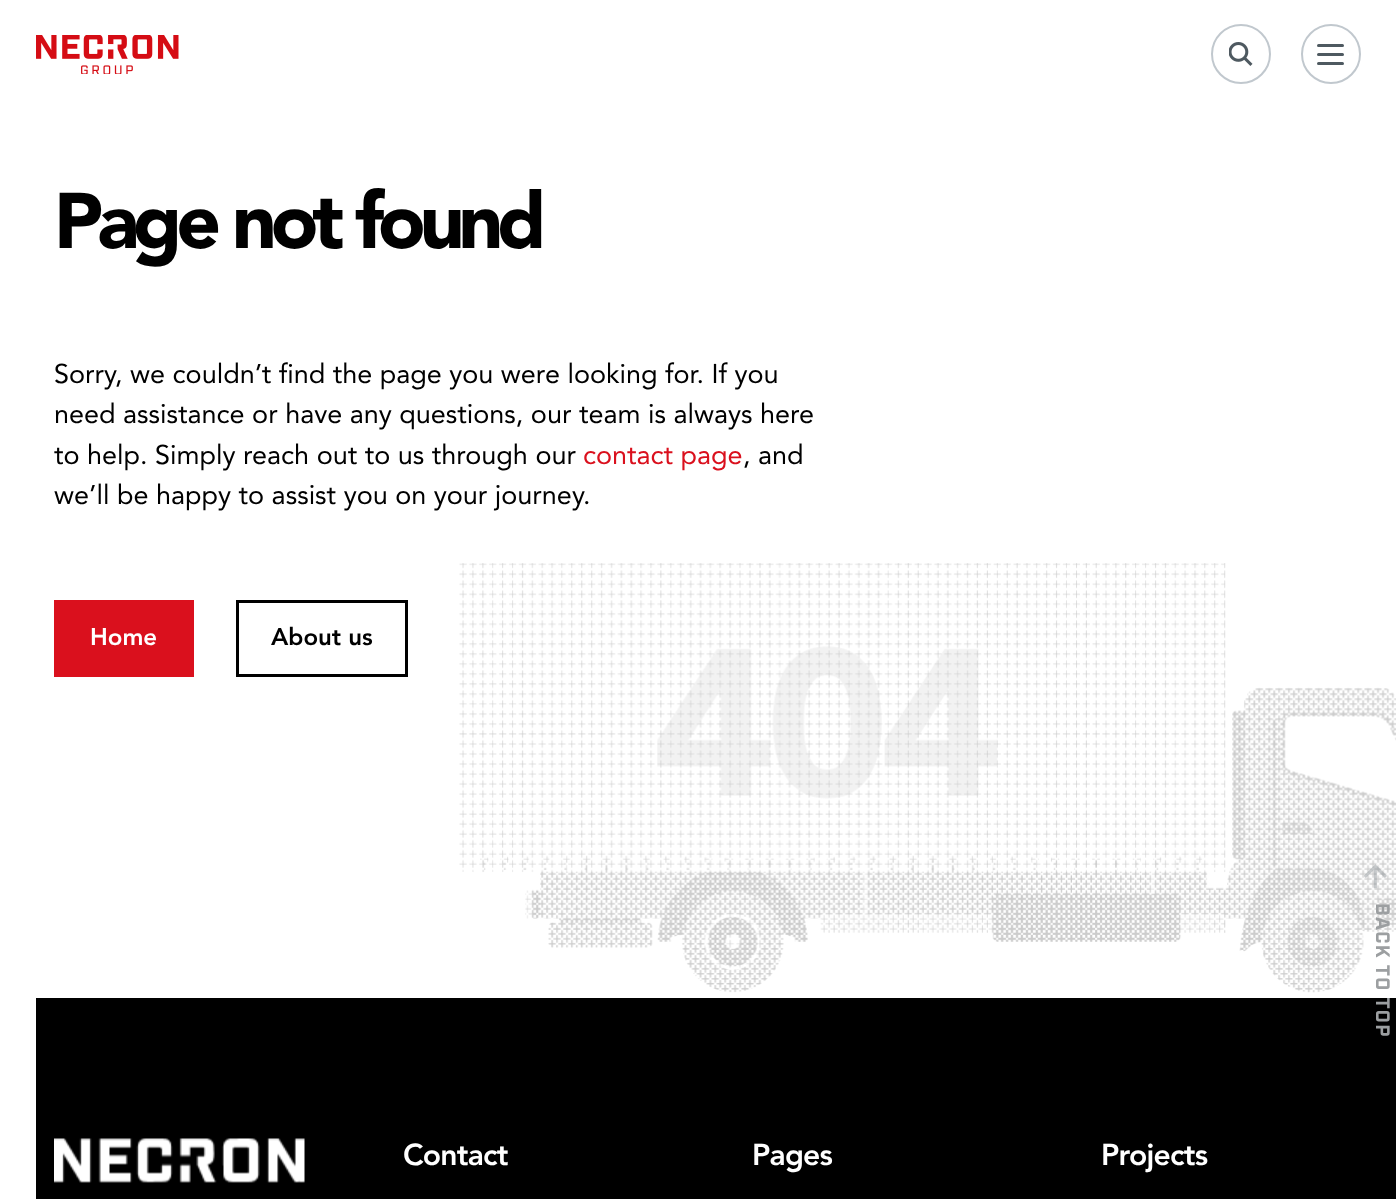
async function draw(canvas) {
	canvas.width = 1396;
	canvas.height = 1199;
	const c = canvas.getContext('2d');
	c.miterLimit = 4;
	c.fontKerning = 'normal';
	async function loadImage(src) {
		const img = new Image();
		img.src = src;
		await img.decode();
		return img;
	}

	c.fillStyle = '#fff';
	c.fillRect(0, 0, 1396, 1199);
	c.drawImage(await loadImage('img1.png'), 36, 35, 143, 39);
	c.beginPath();
	c.arc(1241, 54, 29, 0, 2 * Math.PI);
	c.strokeStyle = '#c1c8ce';
	c.lineWidth = 2;
	c.stroke();
	c.drawImage(await loadImage('img2.png'), 1229, 42, 24, 24);
	c.beginPath();
	c.arc(1331, 54, 29, 0, 2 * Math.PI);
	c.stroke();
	c.fillStyle = '#4e5960';
	c.beginPath();
	c.roundRect(1317, 44, 27, 3, 1.5);
	c.fill();
	c.beginPath();
	c.roundRect(1317, 53, 27, 3, 1.5);
	c.fill();
	c.beginPath();
	c.roundRect(1317, 62, 27, 3, 1.5);
	c.fill();
	c.drawImage(await loadImage('img3.png'), 459, 563, 937, 430);
	c.letterSpacing = '-6px';
	c.font = '900 78px Avenir';
	c.fillStyle = '#000';
	c.fillText('Page not found', 54, 248);
	c.letterSpacing = '0px';
	c.font = '27px Avenir';
	for (const [text, x, y] of [
		['Sorry, we couldn’t find the page you were looking for. If you', 54, 383],
		['need assistance or have any questions, our team is always here', 54, 423],
		['to help. Simply reach out to us through our', 54, 464],
	]) {
		c.fillText(text, x, y);
	}
	c.fillStyle = '#da101d';
	c.fillText('contact page', 583, 464);
	c.fillStyle = '#000';
	c.fillText(', and', 743, 464);
	c.fillText('we’ll be happy to assist you on your journey.', 54, 504);
	c.fillStyle = '#da101d';
	c.fillRect(54, 600, 140, 77);
	c.font = '900 24px "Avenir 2"';
	c.fillStyle = '#fff';
	c.fillText('Home', 90, 645);
	c.strokeStyle = '#000';
	c.lineWidth = 3;
	c.strokeRect(237.5, 601.5, 169, 74);
	c.fillStyle = '#000';
	c.fillText('About us', 271, 645);
	c.drawImage(await loadImage('img4.png'), 1364, 864, 23, 25);
	c.fillRect(36, 998, 1360, 201);
	c.letterSpacing = '1.5px';
	c.font = 'bold 19.5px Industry';
	c.fillStyle = '#9c9fa1';
	c.save();
	c.translate(1376, 903);
	c.rotate(90 * Math.PI / 180);
	c.fillText('BACK TO TOP', 0, 0);
	c.restore();
	c.drawImage(await loadImage('img5.png'), 54, 1138, 251, 45);
	c.letterSpacing = '-0.75px';
	c.font = '900 30px "Avenir 2"';
	c.fillStyle = '#fff';
	for (const [text, x, y] of [
		['Contact', 403, 1165],
		['Pages', 752, 1165],
		['Projects', 1101, 1165],
	]) {
		c.fillText(text, x, y);
	}
}

draw(document.querySelector('canvas'));
